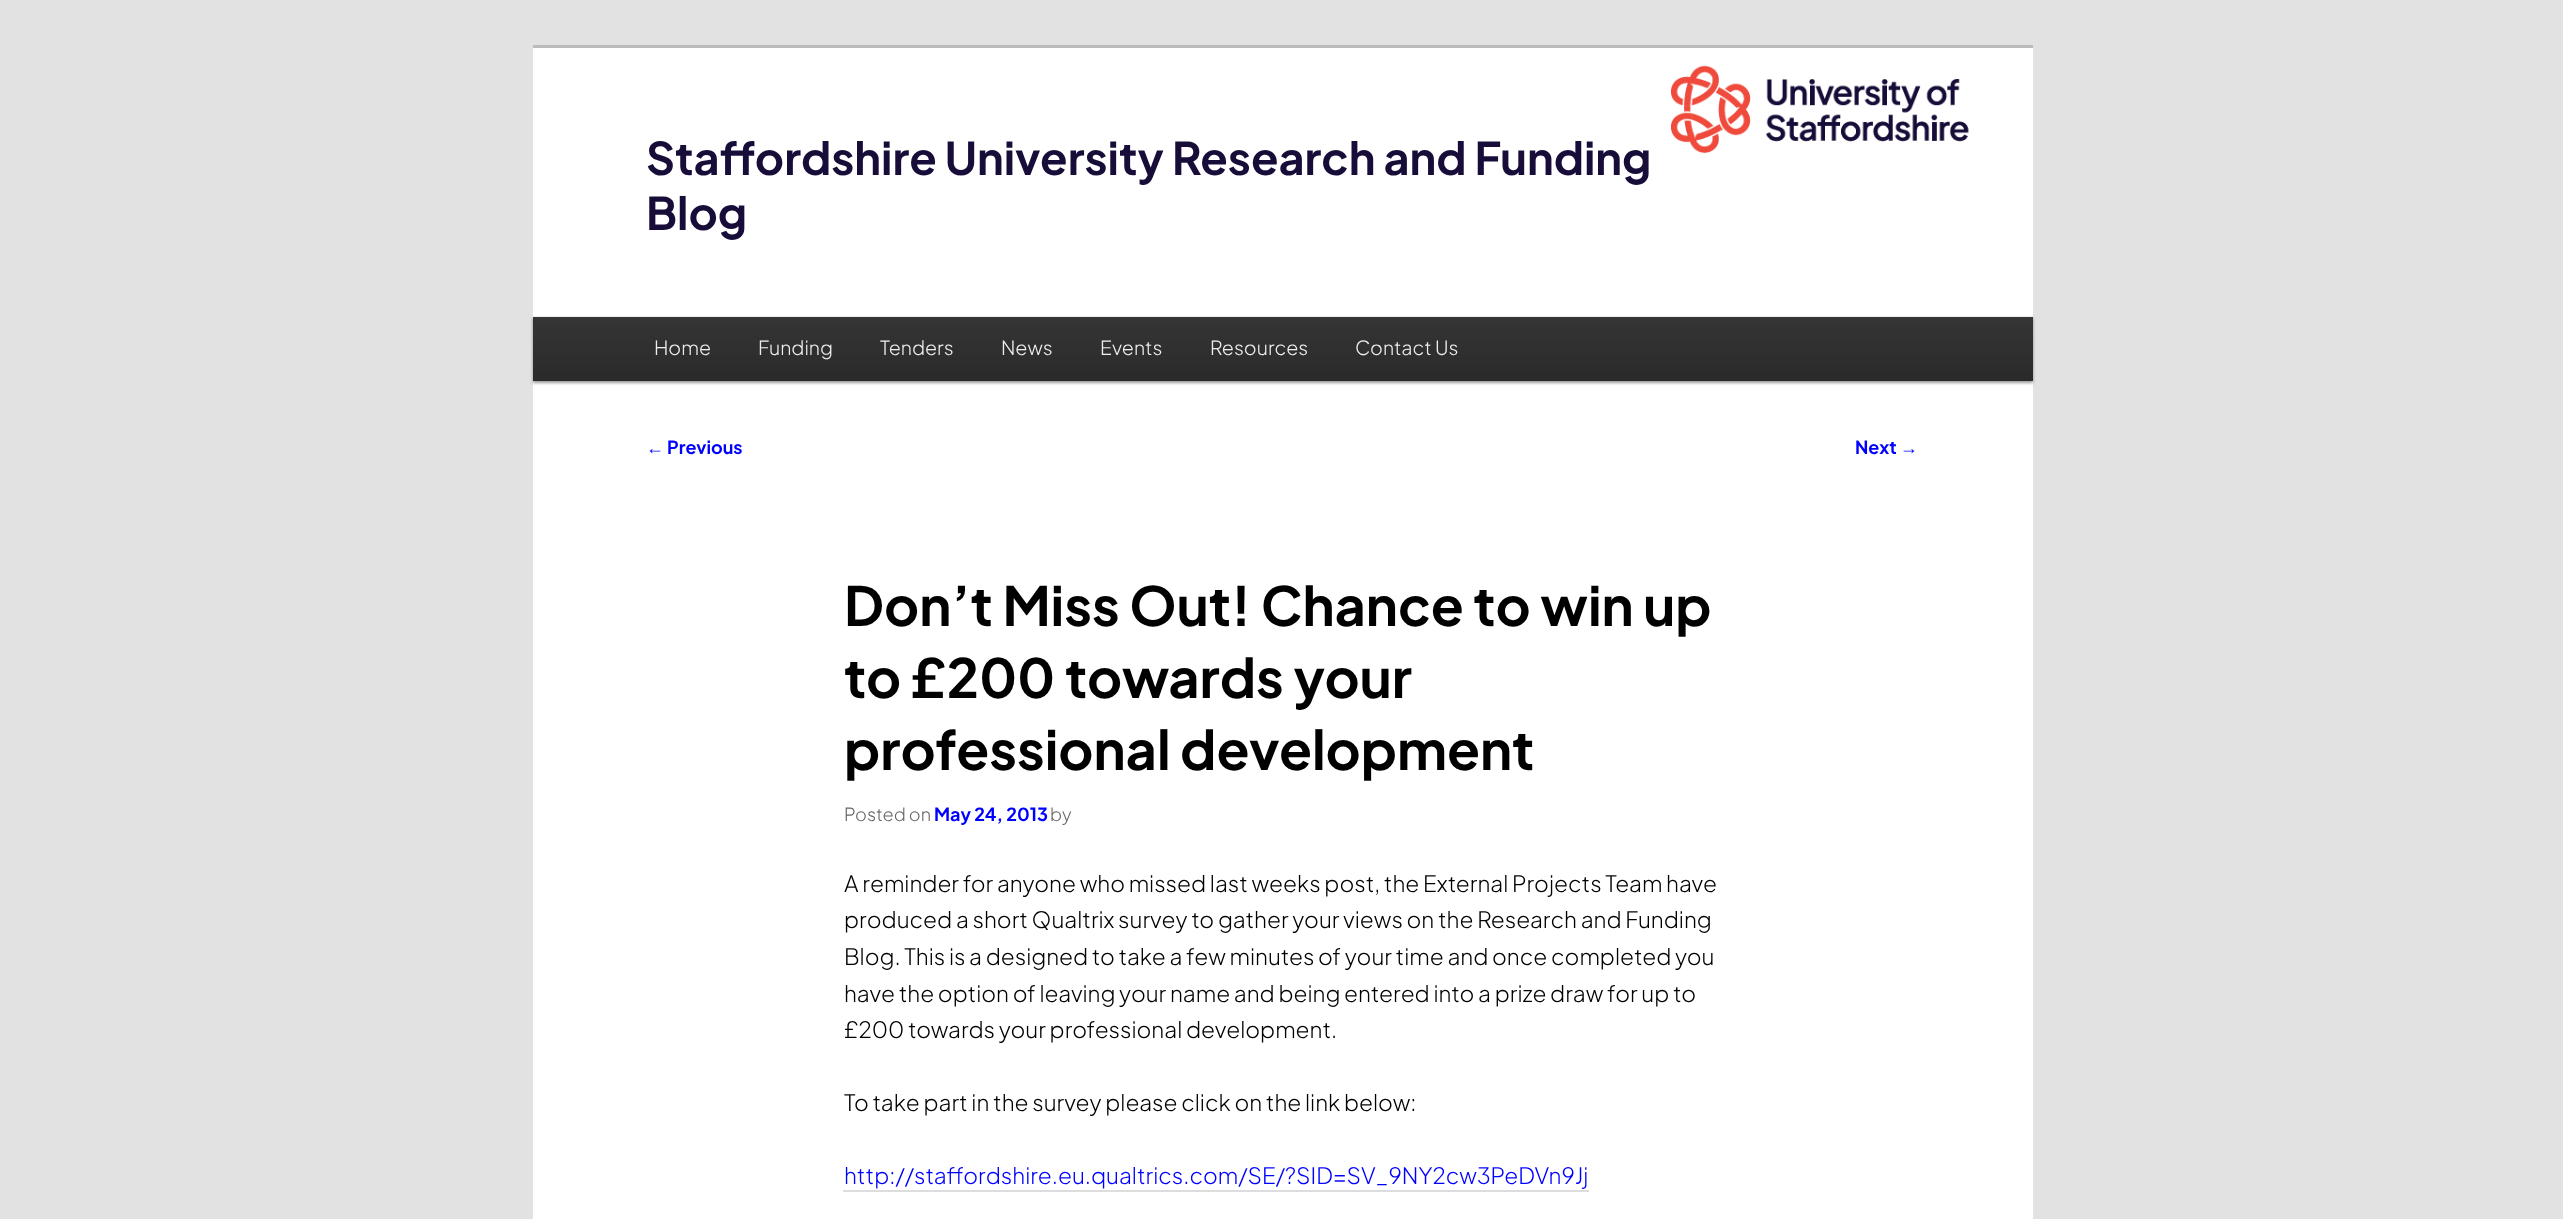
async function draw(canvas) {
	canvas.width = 2563;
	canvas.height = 1219;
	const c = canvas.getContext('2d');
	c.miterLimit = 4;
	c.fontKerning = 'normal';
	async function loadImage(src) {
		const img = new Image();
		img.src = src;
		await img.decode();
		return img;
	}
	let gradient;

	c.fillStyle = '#e2e2e2';
	c.fillRect(0, 0, 2563, 1219);
	c.fillStyle = '#fff';
	c.fillRect(533, 48, 1500, 1171);
	c.fillStyle = '#bbb';
	c.fillRect(533, 45, 1500, 3);
	c.drawImage(await loadImage('img1.png'), 1671, 65, 298, 88);
	c.font = 'bold 45px Plus Jakarta Sans';
	c.fillStyle = '#170d38';
	c.fillText('Staffordshire University Research and Funding', 646, 175);
	c.fillText('Blog', 646, 230);
	c.fillStyle = '#00000066';
	c.filter = 'blur(1.5px)';
	c.beginPath();
	c.rect(533, 318, 1500, 65);
	c.fill();
	c.filter = 'none';
	gradient = c.createLinearGradient(1283, 316, 1283, 381);
	gradient.addColorStop(0, '#353535');
	gradient.addColorStop(1, '#2a2a2a');
	c.fillStyle = gradient;
	c.fillRect(533, 317, 1500, 64);
	c.font = '300 19.5px Plus Jakarta Sans';
	c.fillStyle = '#eee';
	for (const [text, x, y] of [
		['Home', 654, 355],
		['Funding', 758, 355],
		['Tenders', 880, 355],
		['News', 1001, 355],
		['Events', 1100, 355],
		['Resources', 1210, 355],
		['Contact Us', 1355, 355],
	]) {
		c.fillText(text, x, y);
	}
	c.font = '18px Liberation Sans';
	c.fillStyle = '#00f';
	c.fillText('←', 646, 454);
	c.font = 'bold 18px Plus Jakarta Sans';
	c.fillText('Previous', 667, 454);
	c.fillText('Next', 1855, 454);
	c.font = '18px Liberation Sans';
	c.fillText('→', 1900, 454);
	c.font = 'bold 54px Plus Jakarta Sans';
	c.fillStyle = '#000';
	for (const [text, x, y] of [
		['Don’t Miss Out! Chance to win up', 844, 626],
		['to £200 towards your', 844, 698],
		['professional development', 844, 770],
	]) {
		c.fillText(text, x, y);
	}
	c.font = '300 18px Plus Jakarta Sans';
	c.fillStyle = '#666';
	c.fillText('Posted on', 844, 821);
	c.font = 'bold 18px Plus Jakarta Sans';
	c.fillStyle = '#00f';
	c.fillText('May 24, 2013', 934, 821);
	c.font = '300 18px Plus Jakarta Sans';
	c.fillStyle = '#666';
	c.fillText('by', 1050, 821);
	c.font = '300 22.5px Plus Jakarta Sans';
	c.fillStyle = '#000';
	for (const [text, x, y] of [
		['A reminder for anyone who missed last weeks post, the External Projects Team have', 844, 892],
		['produced a short Qualtrix survey to gather your views on the Research and Funding', 844, 928],
		['Blog. This is a designed to take a few minutes of your time and once completed you', 844, 965],
		['have the option of leaving your name and being entered into a prize draw for up to', 844, 1002],
		['£200 towards your professional development.', 844, 1038],
		['To take part in the survey please click on the link below:', 844, 1111],
	]) {
		c.fillText(text, x, y);
	}
	c.fillStyle = '#00f';
	c.fillText('http://staffordshire.eu.qualtrics.com/SE/?SID=SV_9NY2cw3PeDVn9Jj', 844, 1184);
	c.fillStyle = '#ddd';
	c.fillRect(843, 1190, 746, 2);
}

draw(document.querySelector('canvas'));
